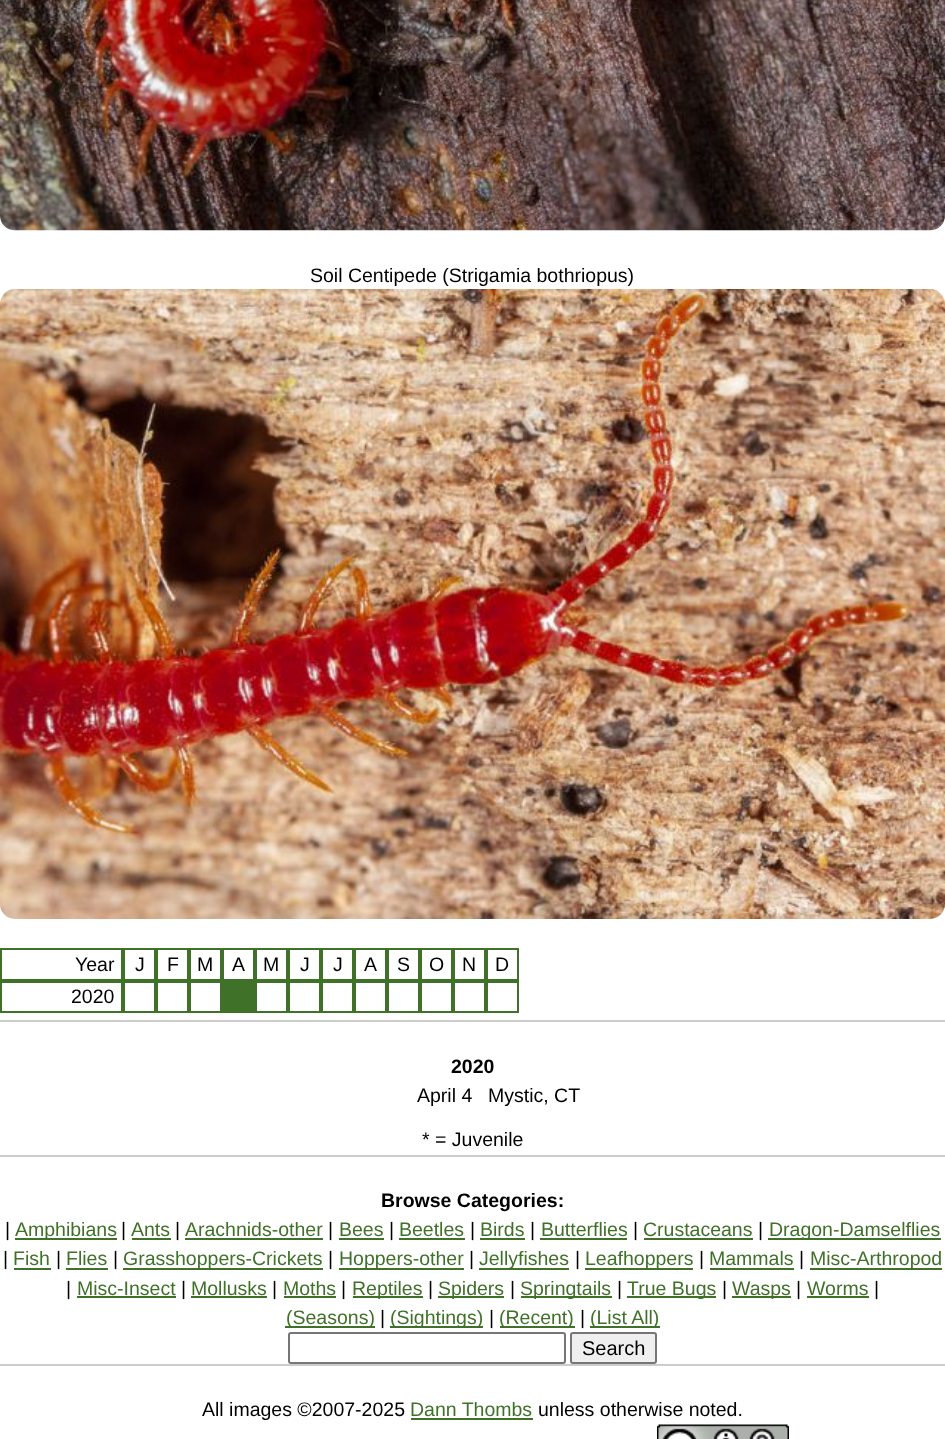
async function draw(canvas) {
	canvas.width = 945;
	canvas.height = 1439;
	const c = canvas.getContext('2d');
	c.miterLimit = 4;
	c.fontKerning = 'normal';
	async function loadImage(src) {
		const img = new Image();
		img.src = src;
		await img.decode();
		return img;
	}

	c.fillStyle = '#fff';
	c.fillRect(0, 0, 945, 1439);
	c.drawImage(await loadImage('img1.png'), 0, 0, 945, 231);
	c.font = '19.5px Liberation Sans';
	c.fillStyle = '#000';
	c.fillText('Soil Centipede (Strigamia bothriopus)', 310, 282);
	c.drawImage(await loadImage('img2.png'), 0, 289, 945, 630);
	c.strokeStyle = '#407129';
	c.lineWidth = 2;
	c.strokeRect(1, 949, 121, 31);
	c.fillText('Year', 75, 971);
	c.strokeRect(124, 949, 31, 31);
	c.fillText('J', 135, 971);
	c.strokeRect(157, 949, 31, 31);
	c.fillText('F', 167, 971);
	c.strokeRect(190, 949, 31, 31);
	c.fillText('M', 197, 971);
	c.strokeRect(223, 949, 31, 31);
	c.fillText('A', 232, 971);
	c.strokeRect(256, 949, 31, 31);
	c.fillText('M', 263, 971);
	c.strokeRect(289, 949, 31, 31);
	c.fillText('J', 300, 971);
	c.strokeRect(322, 949, 31, 31);
	c.fillText('J', 333, 971);
	c.strokeRect(355, 949, 31, 31);
	c.fillText('A', 364, 971);
	c.strokeRect(388, 949, 31, 31);
	c.fillText('S', 397, 971);
	c.strokeRect(421, 949, 31, 31);
	c.fillText('O', 429, 971);
	c.strokeRect(454, 949, 31, 31);
	c.fillText('N', 462, 971);
	c.strokeRect(487, 949, 31, 31);
	c.fillText('D', 495, 971);
	c.strokeRect(1, 982, 121, 30);
	c.fillText('2020', 71, 1003);
	c.strokeRect(124, 982, 31, 30);
	c.strokeRect(157, 982, 31, 30);
	c.strokeRect(190, 982, 31, 30);
	c.fillStyle = '#407129';
	c.fillRect(222, 981, 33, 32);
	c.strokeRect(256, 982, 31, 30);
	c.strokeRect(289, 982, 31, 30);
	c.strokeRect(322, 982, 31, 30);
	c.strokeRect(355, 982, 31, 30);
	c.strokeRect(388, 982, 31, 30);
	c.strokeRect(421, 982, 31, 30);
	c.strokeRect(454, 982, 31, 30);
	c.strokeRect(487, 982, 31, 30);
	c.fillStyle = '#ccc';
	c.fillRect(0, 1020, 945, 2);
	c.font = 'bold 19.5px Liberation Sans';
	c.fillStyle = '#000';
	c.fillText('2020', 451, 1073);
	c.font = '19.5px Liberation Sans';
	for (const [text, x, y] of [
		['April 4', 417, 1102],
		['Mystic, CT', 488, 1102],
		['* = Juvenile', 422, 1146],
	]) {
		c.fillText(text, x, y);
	}
	c.fillStyle = '#ccc';
	c.fillRect(0, 1155, 945, 2);
	c.font = 'bold 19.5px Liberation Sans';
	c.fillStyle = '#000';
	c.fillText('Browse Categories:', 381, 1207);
	c.font = '19.5px Liberation Sans';
	c.fillText('|', 5, 1236);
	c.fillStyle = '#407129';
	c.fillRect(15, 1238, 102, 2);
	c.fillText('Amphibians', 15, 1236);
	c.fillStyle = '#000';
	c.fillText('|', 121, 1236);
	c.fillStyle = '#407129';
	c.fillText('Ants', 131, 1236);
	c.fillRect(132, 1238, 39, 2);
	c.fillStyle = '#000';
	c.fillText('|', 175, 1236);
	c.fillStyle = '#407129';
	c.fillText('Arachnids-other', 185, 1236);
	c.fillRect(185, 1238, 138, 2);
	c.fillStyle = '#000';
	c.fillText('|', 328, 1236);
	c.fillStyle = '#407129';
	c.fillText('Bees', 339, 1236);
	c.fillRect(339, 1238, 45, 2);
	c.fillStyle = '#000';
	c.fillText('|', 389, 1236);
	c.fillStyle = '#407129';
	c.fillText('Beetles', 399, 1236);
	c.fillRect(399, 1238, 66, 2);
	c.fillStyle = '#000';
	c.fillText('|', 470, 1236);
	c.fillStyle = '#407129';
	c.fillText('Birds', 480, 1236);
	c.fillRect(480, 1238, 45, 2);
	c.fillStyle = '#000';
	c.fillText('|', 530, 1236);
	c.fillStyle = '#407129';
	c.fillText('Butterflies', 541, 1236);
	c.fillRect(540, 1238, 87, 2);
	c.fillStyle = '#000';
	c.fillText('|', 633, 1236);
	c.fillStyle = '#407129';
	c.fillText('Crustaceans', 643, 1236);
	c.fillRect(644, 1238, 109, 2);
	c.fillStyle = '#000';
	c.fillText('|', 758, 1236);
	c.fillStyle = '#407129';
	c.fillRect(768, 1238, 173, 2);
	c.fillText('Dragon-Damselflies', 769, 1236);
	c.fillStyle = '#000';
	c.fillText('|', 3, 1265);
	c.fillStyle = '#407129';
	c.fillText('Fish', 13, 1265);
	c.fillRect(14, 1268, 37, 2);
	c.fillStyle = '#000';
	c.fillText('|', 56, 1265);
	c.fillStyle = '#407129';
	c.fillText('Flies', 66, 1265);
	c.fillRect(66, 1268, 42, 2);
	c.fillStyle = '#000';
	c.fillText('|', 113, 1265);
	c.fillStyle = '#407129';
	c.fillRect(123, 1268, 200, 2);
	c.fillText('Grasshoppers-Crickets', 123, 1265);
	c.fillStyle = '#000';
	c.fillText('|', 328, 1265);
	c.fillStyle = '#407129';
	c.fillRect(339, 1268, 125, 2);
	c.fillText('Hoppers-other', 339, 1265);
	c.fillStyle = '#000';
	c.fillText('|', 469, 1265);
	c.fillStyle = '#407129';
	c.fillRect(479, 1268, 90, 2);
	c.fillText('Jellyfishes', 479, 1265);
	c.fillStyle = '#000';
	c.fillText('|', 575, 1265);
	c.fillStyle = '#407129';
	c.fillRect(585, 1268, 108, 2);
	c.fillText('Leafhoppers', 585, 1265);
	c.fillStyle = '#000';
	c.fillText('|', 699, 1265);
	c.fillStyle = '#407129';
	c.fillText('Mammals', 709, 1265);
	c.fillRect(710, 1268, 84, 2);
	c.fillStyle = '#000';
	c.fillText('|', 799, 1265);
	c.fillStyle = '#407129';
	c.fillRect(810, 1268, 132, 2);
	c.fillText('Misc-Arthropod', 810, 1265);
	c.fillStyle = '#000';
	c.fillText('|', 66, 1295);
	c.fillStyle = '#407129';
	c.fillText('Misc-Insect', 77, 1295);
	c.fillRect(77, 1296, 99, 2);
	c.fillStyle = '#000';
	c.fillText('|', 181, 1295);
	c.fillStyle = '#407129';
	c.fillText('Mollusks', 191, 1295);
	c.fillRect(191, 1296, 76, 2);
	c.fillStyle = '#000';
	c.fillText('|', 272, 1295);
	c.fillStyle = '#407129';
	c.fillText('Moths', 283, 1295);
	c.fillRect(284, 1296, 52, 2);
	c.fillStyle = '#000';
	c.fillText('|', 341, 1295);
	c.fillStyle = '#407129';
	c.fillRect(353, 1296, 70, 2);
	c.fillText('Reptiles', 352, 1295);
	c.fillStyle = '#000';
	c.fillText('|', 428, 1295);
	c.fillStyle = '#407129';
	c.fillRect(438, 1296, 66, 2);
	c.fillText('Spiders', 438, 1295);
	c.fillStyle = '#000';
	c.fillText('|', 510, 1295);
	c.fillStyle = '#407129';
	c.fillRect(521, 1296, 91, 2);
	c.fillText('Springtails', 520, 1295);
	c.fillStyle = '#000';
	c.fillText('|', 617, 1295);
	c.fillStyle = '#407129';
	c.fillRect(627, 1296, 89, 2);
	c.fillText('True Bugs', 627, 1295);
	c.fillStyle = '#000';
	c.fillText('|', 722, 1295);
	c.fillStyle = '#407129';
	c.fillRect(732, 1296, 59, 2);
	c.fillText('Wasps', 732, 1295);
	c.fillStyle = '#000';
	c.fillText('|', 796, 1295);
	c.fillStyle = '#407129';
	c.fillText('Worms', 807, 1295);
	c.fillRect(807, 1296, 62, 2);
	c.fillStyle = '#000';
	c.fillText('|', 874, 1295);
	c.fillStyle = '#407129';
	c.fillRect(285, 1326, 90, 2);
	c.fillText('(Seasons)', 286, 1324);
	c.fillStyle = '#000';
	c.fillText('|', 380, 1324);
	c.fillStyle = '#407129';
	c.fillRect(390, 1326, 93, 2);
	c.fillText('(Sightings)', 390, 1324);
	c.fillStyle = '#000';
	c.fillText('|', 489, 1324);
	c.fillStyle = '#407129';
	c.fillRect(500, 1326, 75, 2);
	c.fillText('(Recent)', 499, 1324);
	c.fillStyle = '#000';
	c.fillText('|', 580, 1324);
	c.fillStyle = '#407129';
	c.fillRect(590, 1326, 70, 2);
	c.fillText('(List All)', 590, 1324);
	c.beginPath();
	c.roundRect(289, 1333, 276, 30, 2);
	c.strokeStyle = '#767676';
	c.stroke();
	c.fillStyle = '#efefef';
	c.beginPath();
	c.roundRect(571, 1333, 85, 30, 2);
	c.fill();
	c.stroke();
	c.font = '20px Liberation Sans';
	c.fillStyle = '#000';
	c.fillText('Search', 582, 1355);
	c.fillStyle = '#ccc';
	c.fillRect(0, 1364, 945, 2);
	c.font = '19.5px Liberation Sans';
	c.fillStyle = '#000';
	c.fillText('All images ©2007-2025', 202, 1416);
	c.fillStyle = '#407129';
	c.fillText('Dann Thombs', 410, 1416);
	c.fillRect(411, 1418, 122, 2);
	c.fillStyle = '#000';
	c.fillText('unless otherwise noted.', 538, 1416);
	c.drawImage(await loadImage('img3.png'), 657, 1424, 132, 15);
}

draw(document.querySelector('canvas'));
